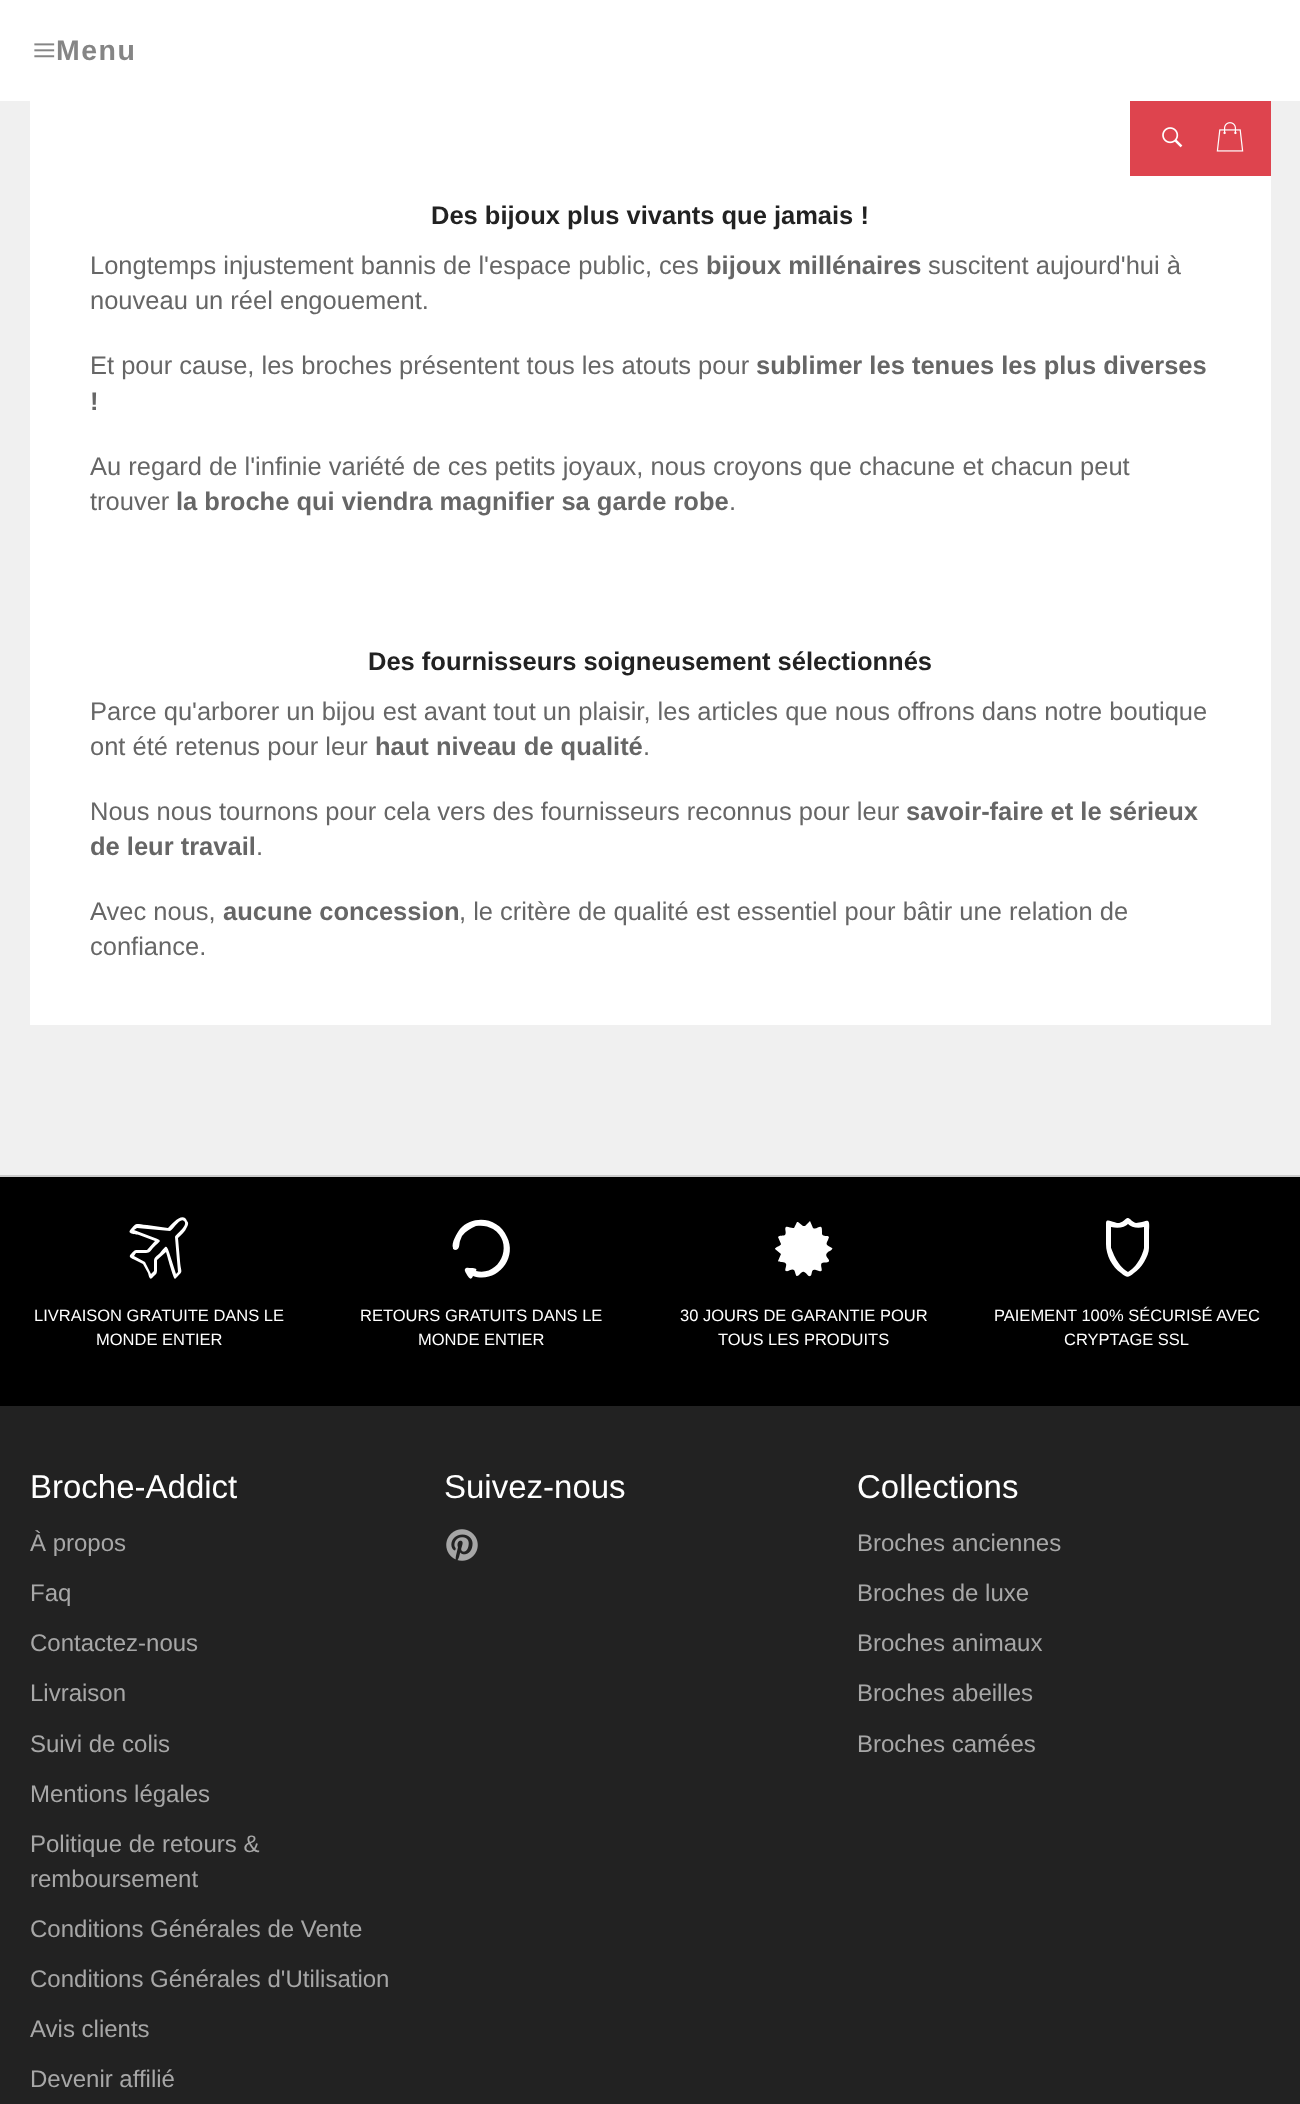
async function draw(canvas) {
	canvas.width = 1300;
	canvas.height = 2104;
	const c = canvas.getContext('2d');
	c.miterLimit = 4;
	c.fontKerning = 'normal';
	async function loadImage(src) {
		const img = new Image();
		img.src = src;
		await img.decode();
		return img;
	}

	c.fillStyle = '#f0f0f0';
	c.fillRect(0, 0, 1300, 2104);
	c.fillStyle = '#fff';
	c.fillRect(0, 0, 1300, 101);
	c.drawImage(await loadImage('img1.png'), 34, 43, 21, 15);
	c.letterSpacing = '1.5px';
	c.font = 'bold 28.5px Liberation Sans';
	c.fillStyle = '#858585';
	c.fillText('Menu', 56, 60);
	c.fillStyle = '#fff';
	c.fillRect(30, 101, 1241, 924);
	c.fillStyle = '#de444e';
	c.fillRect(1130, 101, 141, 75);
	c.drawImage(await loadImage('img2.png'), 1162, 127, 21, 21);
	c.drawImage(await loadImage('img3.png'), 1216, 122, 28, 30);
	c.letterSpacing = '0px';
	c.font = 'bold 25.5px Liberation Sans';
	c.fillStyle = '#222';
	c.fillText('Des bijoux plus vivants que jamais !', 431, 224);
	c.font = '25.5px Liberation Sans';
	c.fillStyle = '#666';
	c.fillText('Longtemps injustement bannis de l\'espace public, ces', 90, 274);
	c.font = 'bold 25.5px Liberation Sans';
	c.fillText('bijoux millénaires', 706, 274);
	c.font = '25.5px Liberation Sans';
	for (const [text, x, y] of [
		['suscitent aujourd\'hui à', 928, 274],
		['nouveau un réel engouement.', 90, 309],
		['Et pour cause, les broches présentent tous les atouts pour', 90, 374],
	]) {
		c.fillText(text, x, y);
	}
	c.font = 'bold 25.5px Liberation Sans';
	c.fillText('sublimer les tenues les plus diverses', 756, 374);
	c.fillText('!', 90, 410);
	c.font = '25.5px Liberation Sans';
	c.fillText('Au regard de l\'infinie variété de ces petits joyaux, nous croyons que chacune et chacun peut', 90, 475);
	c.fillText('trouver', 90, 510);
	c.font = 'bold 25.5px Liberation Sans';
	c.fillText('la broche qui viendra magnifier sa garde robe', 176, 510);
	c.font = '25.5px Liberation Sans';
	c.fillText('.', 729, 510);
	c.font = 'bold 25.5px Liberation Sans';
	c.fillStyle = '#222';
	c.fillText('Des fournisseurs soigneusement sélectionnés', 368, 670);
	c.font = '25.5px Liberation Sans';
	c.fillStyle = '#666';
	c.fillText('Parce qu\'arborer un bijou est avant tout un plaisir, les articles que nous offrons dans notre boutique', 90, 720);
	c.fillText('ont été retenus pour leur', 90, 755);
	c.font = 'bold 25.5px Liberation Sans';
	c.fillText('haut niveau de qualité', 375, 755);
	c.font = '25.5px Liberation Sans';
	c.fillText('.', 643, 755);
	c.fillText('Nous nous tournons pour cela vers des fournisseurs reconnus pour leur', 90, 820);
	c.font = 'bold 25.5px Liberation Sans';
	c.fillText('savoir-faire et le sérieux', 906, 820);
	c.fillText('de leur travail', 90, 855);
	c.font = '25.5px Liberation Sans';
	c.fillText('.', 256, 855);
	c.fillText('Avec nous,', 90, 920);
	c.font = 'bold 25.5px Liberation Sans';
	c.fillText('aucune concession', 223, 920);
	c.font = '25.5px Liberation Sans';
	c.fillText(', le critère de qualité est essentiel pour bâtir une relation de', 459, 920);
	c.fillText('confiance.', 90, 955);
	c.fillStyle = '#000';
	c.fillRect(0, 1177, 1300, 229);
	c.fillStyle = '#ccc';
	c.fillRect(0, 1175, 1300, 2);
	c.fillStyle = '#fff';
	c.beginPath();
	c.moveTo(175, 1279);
	c.lineTo(176, 1278);
	c.bezierCurveTo(184, 1270, 181, 1274, 180, 1261);
	c.lineTo(178, 1238);
	c.bezierCurveTo(181, 1235, 185, 1232, 187, 1227);
	c.bezierCurveTo(188, 1225, 189, 1223, 187, 1221);
	c.bezierCurveTo(183, 1211, 172, 1224, 168, 1228);
	c.lineTo(147, 1225);
	c.bezierCurveTo(135, 1224, 137, 1222, 131, 1229);
	c.bezierCurveTo(126, 1234, 135, 1234, 139, 1235);
	c.lineTo(155, 1241);
	c.lineTo(147, 1250);
	c.lineTo(137, 1250);
	c.bezierCurveTo(134, 1250, 134, 1251, 131, 1254);
	c.bezierCurveTo(128, 1257, 131, 1258, 135, 1260);
	c.lineTo(143, 1264);
	c.lineTo(148, 1273);
	c.bezierCurveTo(149, 1277, 150, 1281, 153, 1277);
	c.bezierCurveTo(156, 1274, 157, 1274, 157, 1270);
	c.lineTo(157, 1260);
	c.lineTo(166, 1252);
	c.bezierCurveTo(167, 1255, 173, 1278, 175, 1279);
	c.closePath();
	c.moveTo(134, 1256);
	c.lineTo(136, 1253);
	c.lineTo(146, 1253);
	c.bezierCurveTo(150, 1253, 151, 1250, 154, 1247);
	c.bezierCurveTo(160, 1241, 163, 1241, 155, 1238);
	c.lineTo(134, 1230);
	c.lineTo(137, 1228);
	c.lineTo(170, 1231);
	c.bezierCurveTo(173, 1230, 180, 1217, 184, 1221);
	c.bezierCurveTo(189, 1225, 176, 1234, 175, 1237);
	c.lineTo(178, 1272);
	c.lineTo(176, 1274);
	c.lineTo(169, 1252);
	c.bezierCurveTo(166, 1244, 166, 1246, 160, 1253);
	c.bezierCurveTo(157, 1256, 154, 1257, 154, 1261);
	c.lineTo(154, 1271);
	c.lineTo(151, 1274);
	c.lineTo(145, 1262);
	c.closePath();
	c.fill('evenodd');
	c.font = '16.5px Liberation Sans';
	c.fillText('LIVRAISON GRATUITE DANS LE', 34, 1321);
	c.fillText('MONDE ENTIER', 96, 1345);
	c.beginPath();
	c.moveTo(507, 1237);
	c.bezierCurveTo(518, 1259, 496, 1284, 473, 1276);
	c.bezierCurveTo(471, 1281, 469, 1278, 467, 1275);
	c.bezierCurveTo(467, 1274, 464, 1271, 465, 1269);
	c.bezierCurveTo(466, 1267, 469, 1268, 471, 1268);
	c.bezierCurveTo(473, 1268, 478, 1268, 476, 1271);
	c.bezierCurveTo(500, 1277, 515, 1243, 493, 1229);
	c.bezierCurveTo(488, 1226, 482, 1225, 476, 1226);
	c.bezierCurveTo(471, 1228, 466, 1231, 462, 1236);
	c.lineTo(460, 1241);
	c.bezierCurveTo(459, 1244, 460, 1250, 455, 1250);
	c.bezierCurveTo(454, 1250, 454, 1249, 453, 1249);
	c.lineTo(453, 1248);
	c.bezierCurveTo(451, 1243, 457, 1233, 460, 1229);
	c.bezierCurveTo(474, 1214, 499, 1218, 507, 1237);
	c.closePath();
	c.fill();
	c.fillText('RETOURS GRATUITS DANS LE', 360, 1321);
	c.fillText('MONDE ENTIER', 418, 1345);
	c.beginPath();
	c.moveTo(832, 1248);
	c.bezierCurveTo(827, 1245, 825, 1245, 828, 1240);
	c.lineTo(829, 1237);
	c.bezierCurveTo(828, 1235, 823, 1237, 822, 1234);
	c.lineTo(822, 1231);
	c.bezierCurveTo(822, 1230, 822, 1227, 821, 1227);
	c.bezierCurveTo(819, 1226, 816, 1230, 813, 1228);
	c.lineTo(810, 1221);
	c.lineTo(805, 1226);
	c.lineTo(804, 1226);
	c.lineTo(803, 1226);
	c.lineTo(798, 1222);
	c.lineTo(797, 1222);
	c.lineTo(794, 1228);
	c.lineTo(793, 1228);
	c.bezierCurveTo(791, 1228, 787, 1226, 786, 1227);
	c.bezierCurveTo(784, 1228, 787, 1233, 785, 1235);
	c.bezierCurveTo(784, 1236, 779, 1235, 778, 1237);
	c.lineTo(781, 1244);
	c.bezierCurveTo(781, 1246, 775, 1247, 775, 1249);
	c.lineTo(781, 1254);
	c.lineTo(778, 1261);
	c.bezierCurveTo(779, 1263, 785, 1261, 786, 1264);
	c.bezierCurveTo(787, 1265, 784, 1271, 786, 1271);
	c.bezierCurveTo(788, 1272, 792, 1268, 794, 1270);
	c.bezierCurveTo(795, 1271, 796, 1277, 797, 1276);
	c.bezierCurveTo(800, 1276, 801, 1271, 804, 1272);
	c.bezierCurveTo(806, 1272, 808, 1277, 810, 1276);
	c.bezierCurveTo(813, 1276, 810, 1268, 816, 1270);
	c.lineTo(819, 1271);
	c.bezierCurveTo(825, 1273, 819, 1265, 822, 1263);
	c.bezierCurveTo(824, 1262, 829, 1263, 829, 1261);
	c.bezierCurveTo(830, 1259, 823, 1256, 828, 1252);
	c.bezierCurveTo(828, 1252, 834, 1249, 832, 1248);
	c.closePath();
	c.fill();
	c.fillText('30 JOURS DE GARANTIE POUR', 680, 1321);
	c.fillText('TOUS LES PRODUITS', 718, 1345);
	c.beginPath();
	c.moveTo(1148, 1221);
	c.bezierCurveTo(1150, 1222, 1149, 1230, 1149, 1231);
	c.lineTo(1149, 1248);
	c.bezierCurveTo(1149, 1256, 1141, 1269, 1134, 1273);
	c.bezierCurveTo(1128, 1278, 1127, 1278, 1121, 1273);
	c.bezierCurveTo(1112, 1267, 1106, 1255, 1106, 1244);
	c.lineTo(1106, 1223);
	c.bezierCurveTo(1106, 1218, 1112, 1222, 1114, 1222);
	c.lineTo(1117, 1223);
	c.bezierCurveTo(1124, 1223, 1126, 1217, 1128, 1218);
	c.bezierCurveTo(1130, 1218, 1132, 1222, 1136, 1223);
	c.lineTo(1142, 1222);
	c.bezierCurveTo(1143, 1222, 1146, 1220, 1148, 1221);
	c.closePath();
	c.moveTo(1144, 1248);
	c.lineTo(1144, 1227);
	c.bezierCurveTo(1137, 1229, 1131, 1227, 1128, 1224);
	c.bezierCurveTo(1125, 1227, 1119, 1229, 1111, 1227);
	c.lineTo(1111, 1248);
	c.bezierCurveTo(1112, 1249, 1116, 1265, 1128, 1272);
	c.bezierCurveTo(1140, 1265, 1144, 1249, 1144, 1248);
	c.closePath();
	c.fill('evenodd');
	c.fillText('PAIEMENT 100% SÉCURISÉ AVEC', 994, 1321);
	c.fillText('CRYPTAGE SSL', 1064, 1345);
	c.fillStyle = '#222';
	c.fillRect(0, 1406, 1300, 698);
	c.font = '33px Liberation Sans';
	c.fillStyle = '#fff';
	c.fillText('Broche-Addict', 30, 1498);
	c.font = '24px Liberation Sans';
	c.fillStyle = '#a7a7a7';
	for (const [text, x, y] of [
		['À propos', 30, 1551],
		['Faq', 30, 1601],
		['Contactez-nous', 30, 1651],
		['Livraison', 30, 1701],
		['Suivi de colis', 30, 1752],
		['Mentions légales', 30, 1802],
		['Politique de retours &', 30, 1852],
		['remboursement', 30, 1887],
		['Conditions Générales de Vente', 30, 1937],
		['Conditions Générales d\'Utilisation', 30, 1987],
		['Avis clients', 30, 2037],
		['Devenir affilié', 30, 2087],
	]) {
		c.fillText(text, x, y);
	}
	c.font = '33px Liberation Sans';
	c.fillStyle = '#fff';
	c.fillText('Suivez-nous', 444, 1498);
	c.drawImage(await loadImage('img4.png'), 446, 1529, 32, 32);
	c.fillText('Collections', 857, 1498);
	c.font = '24px Liberation Sans';
	c.fillStyle = '#a7a7a7';
	for (const [text, x, y] of [
		['Broches anciennes', 857, 1551],
		['Broches de luxe', 857, 1601],
		['Broches animaux', 857, 1651],
		['Broches abeilles', 857, 1701],
		['Broches camées', 857, 1752],
	]) {
		c.fillText(text, x, y);
	}
}

draw(document.querySelector('canvas'));
